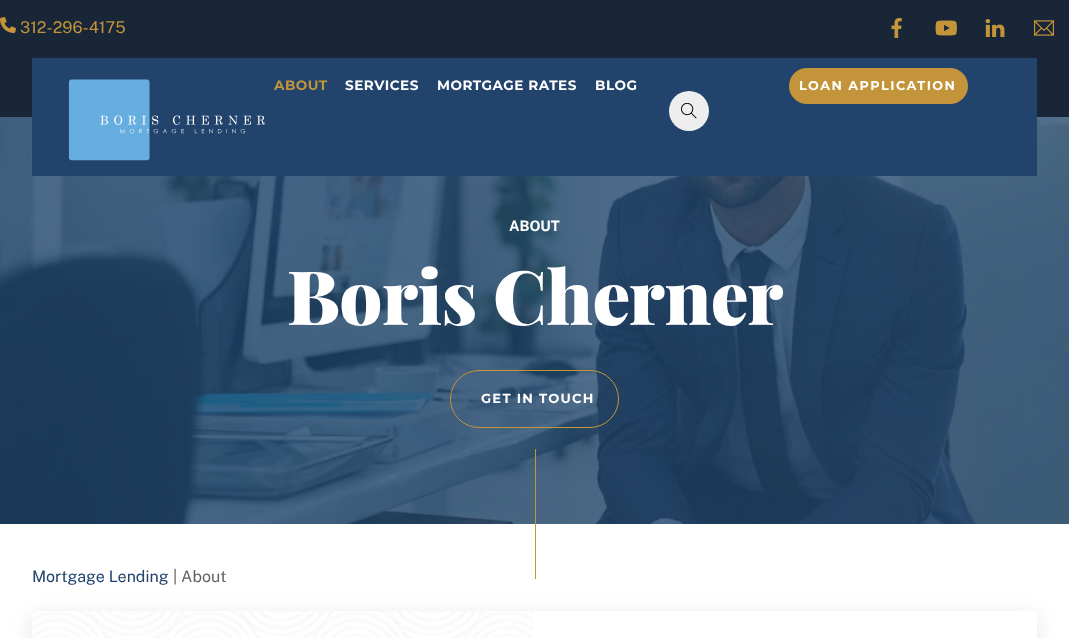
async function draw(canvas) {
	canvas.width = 1069;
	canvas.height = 638;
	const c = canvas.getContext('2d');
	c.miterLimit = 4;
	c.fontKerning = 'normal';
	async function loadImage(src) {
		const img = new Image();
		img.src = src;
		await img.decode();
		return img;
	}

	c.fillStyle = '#fff';
	c.fillRect(0, 0, 1069, 638);
	c.fillStyle = '#182638';
	c.fillRect(0, 0, 1069, 117);
	c.drawImage(await loadImage('img1.png'), 0, 17, 16, 16);
	c.font = '16.25px Public Sans';
	c.fillStyle = '#c4943a';
	c.fillText('312-296-4175', 20, 33);
	c.drawImage(await loadImage('img2.png'), 891, 18, 11, 20);
	c.drawImage(await loadImage('img3.png'), 935, 20, 22, 16);
	c.drawImage(await loadImage('img4.png'), 985, 19, 20, 18);
	c.drawImage(await loadImage('img5.png'), 1034, 20, 20, 16);
	c.drawImage(await loadImage('img8.png'), 0, 117, 1069, 407);
	c.fillStyle = '#22436c';
	c.fillRect(32, 58, 1005, 118);
	c.drawImage(await loadImage('img6.png'), 68, 79, 197, 82);
	c.letterSpacing = '0.5px';
	c.font = 'bold 13.6px Montserrat';
	c.fillStyle = '#c4943a';
	c.fillText('ABOUT', 274, 90);
	c.fillStyle = '#fff';
	for (const [text, x, y] of [
		['SERVICES', 345, 90],
		['MORTGAGE RATES', 437, 90],
		['BLOG', 595, 90],
	]) {
		c.fillText(text, x, y);
	}
	c.fillStyle = '#c4943a';
	c.beginPath();
	c.roundRect(789, 68, 179, 36, 18);
	c.fill();
	c.letterSpacing = '1.5px';
	c.font = 'bold 12.75px Montserrat';
	c.fillStyle = '#fff';
	c.fillText('LOAN APPLICATION', 799, 90);
	c.fillStyle = '#eee';
	c.beginPath();
	c.arc(689, 111, 20, 0, 2 * Math.PI);
	c.fill();
	c.drawImage(await loadImage('img7.png'), 681, 103, 16, 16);
	c.letterSpacing = '0px';
	c.font = 'bold 14.5px Public Sans';
	c.fillStyle = '#fff';
	c.fillText('ABOUT', 509, 231);
	c.letterSpacing = '-0.5px';
	c.font = '900 75px Playfair Display';
	c.fillText('Boris Cherner', 287, 325);
	c.beginPath();
	c.roundRect(450.5, 370.5, 168, 57, 28.5);
	c.strokeStyle = '#c4943a';
	c.stroke();
	c.letterSpacing = '1.25px';
	c.font = 'bold 13.1px Montserrat';
	c.fillText('GET IN TOUCH', 481, 403);
	c.fillStyle = '#c4943a';
	c.fillRect(535, 449, 1, 130);
	c.letterSpacing = '0px';
	c.font = '16px Public Sans';
	c.fillStyle = '#22436c';
	c.fillText('Mortgage Lending', 32, 582);
	c.fillStyle = '#636363';
	c.fillText('| About', 173, 582);
	c.save();
	c.beginPath();
	c.moveTo(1, 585);
	c.lineTo(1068, 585);
	c.lineTo(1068, 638);
	c.lineTo(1, 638);
	c.closePath();
	c.moveTo(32, 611);
	c.lineTo(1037, 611);
	c.lineTo(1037, 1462);
	c.lineTo(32, 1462);
	c.closePath();
	c.clip('evenodd');
	c.fillStyle = '#0000001a';
	c.filter = 'blur(10px)';
	c.beginPath();
	c.rect(32, 616, 1005, 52);
	c.fill();
	c.filter = 'none';
	c.restore();
	c.drawImage(await loadImage('img9.png'), 32, 611, 502, 27);
}

draw(document.querySelector('canvas'));
